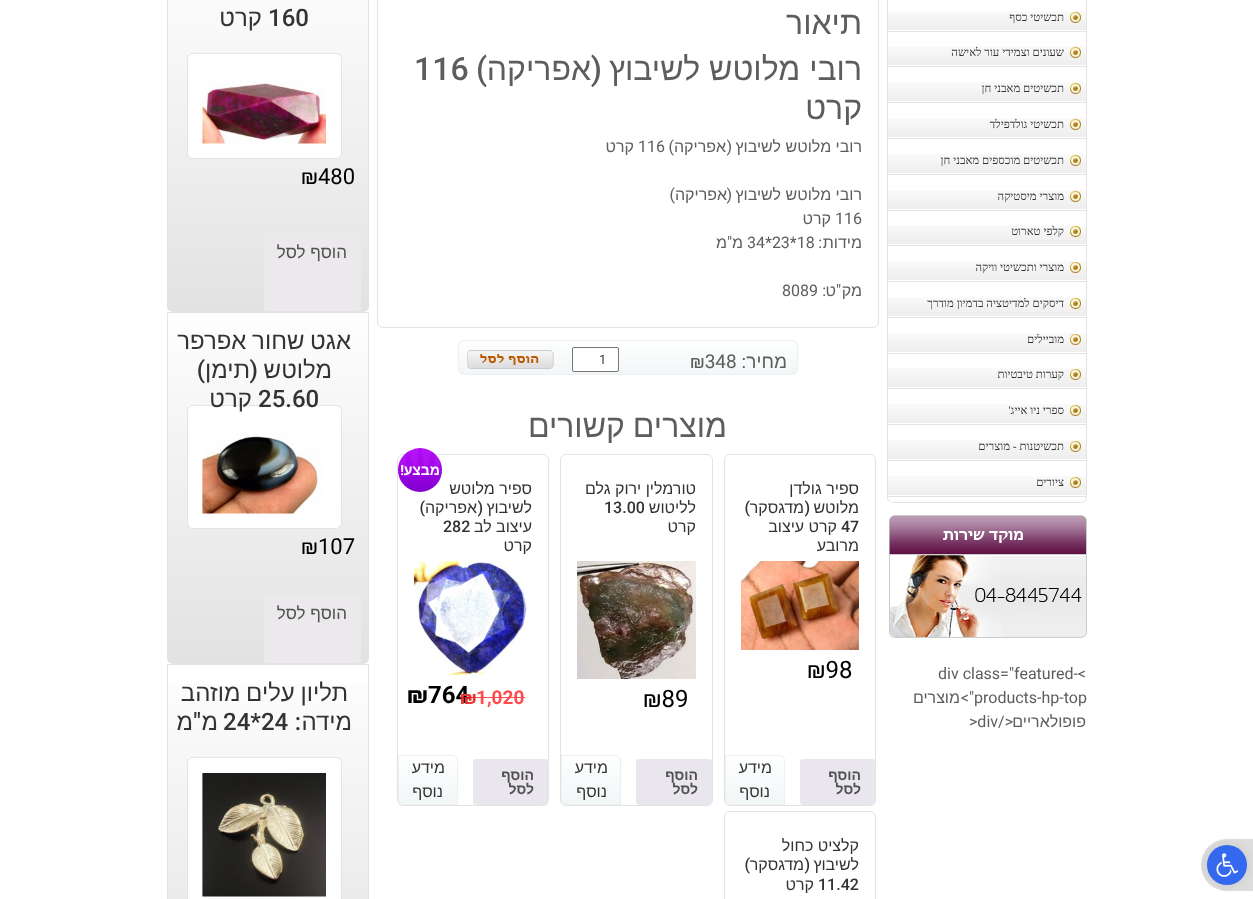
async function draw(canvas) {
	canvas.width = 1253;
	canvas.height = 899;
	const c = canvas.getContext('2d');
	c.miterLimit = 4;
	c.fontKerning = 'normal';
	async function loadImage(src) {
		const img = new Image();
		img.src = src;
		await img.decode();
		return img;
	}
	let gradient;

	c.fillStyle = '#fff';
	c.fillRect(0, 0, 1253, 899);
	c.fillStyle = '#ddd';
	c.beginPath();
	c.roundRect(1201, 839, 52, 52, [26, 0, 0, 26]);
	c.fill();
	c.fillStyle = '#0000001a';
	c.filter = 'blur(5px)';
	c.beginPath();
	c.roundRect(1207, 845, 40, 40, 20);
	c.fill();
	c.filter = 'none';
	c.fillStyle = '#3469ef';
	c.beginPath();
	c.arc(1227, 865, 20, 0, 2 * Math.PI);
	c.fill();
	c.drawImage(await loadImage('img1.png'), 1216, 853, 23, 24);
	c.fillStyle = '#e3e3e3';
	c.beginPath();
	c.moveTo(887, -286);
	c.lineTo(1087, -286);
	c.lineTo(1087, 497);
	c.bezierCurveTo(1087, 500, 1084, 503, 1081, 503);
	c.lineTo(893, 503);
	c.bezierCurveTo(890, 503, 887, 500, 887, 497);
	c.closePath();
	c.moveTo(888, -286);
	c.lineTo(1086, -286);
	c.lineTo(1086, 497);
	c.bezierCurveTo(1086, 500, 1084, 502, 1081, 502);
	c.lineTo(893, 502);
	c.bezierCurveTo(890, 502, 888, 500, 888, 497);
	c.closePath();
	c.fill('evenodd');
	c.drawImage(await loadImage('img2.png'), 888, 11, 198, 19);
	c.drawImage(await loadImage('img3.png'), 1070, 12, 12, 11);
	c.fillRect(888, 31, 198, 1);
	c.direction = 'rtl';
	c.font = '11.5px Liberation Serif';
	c.fillStyle = '#333';
	c.fillText('תכשיטי כסף', 1064, 21);
	c.drawImage(await loadImage('img2.png'), 888, 46, 198, 19);
	c.drawImage(await loadImage('img3.png'), 1070, 47, 12, 11);
	c.fillStyle = '#e3e3e3';
	c.fillRect(888, 66, 198, 1);
	c.fillStyle = '#333';
	c.fillText('שעונים וצמידי עור לאישה', 1064, 56);
	c.drawImage(await loadImage('img2.png'), 888, 82, 198, 19);
	c.drawImage(await loadImage('img3.png'), 1070, 83, 12, 11);
	c.fillStyle = '#e3e3e3';
	c.fillRect(888, 102, 198, 1);
	c.fillStyle = '#333';
	c.fillText('תכשיטים מאבני חן', 1064, 92);
	c.drawImage(await loadImage('img2.png'), 888, 118, 198, 19);
	c.drawImage(await loadImage('img3.png'), 1070, 119, 12, 11);
	c.fillStyle = '#e3e3e3';
	c.fillRect(888, 138, 198, 1);
	c.fillStyle = '#333';
	c.fillText('תכשיטי גולדפילד', 1064, 128);
	c.drawImage(await loadImage('img2.png'), 888, 154, 198, 19);
	c.drawImage(await loadImage('img3.png'), 1070, 155, 12, 11);
	c.fillStyle = '#e3e3e3';
	c.fillRect(888, 174, 198, 1);
	c.fillStyle = '#333';
	c.fillText('תכשיטים מוכספים מאבני חן', 1064, 164);
	c.drawImage(await loadImage('img2.png'), 888, 190, 198, 19);
	c.drawImage(await loadImage('img3.png'), 1070, 191, 12, 11);
	c.fillStyle = '#e3e3e3';
	c.fillRect(888, 210, 198, 1);
	c.fillStyle = '#333';
	c.fillText('מוצרי מיסטיקה', 1064, 200);
	c.drawImage(await loadImage('img2.png'), 888, 225, 198, 19);
	c.drawImage(await loadImage('img3.png'), 1070, 226, 12, 11);
	c.fillStyle = '#e3e3e3';
	c.fillRect(888, 245, 198, 1);
	c.fillStyle = '#333';
	c.fillText('קלפי טארוט', 1064, 235);
	c.drawImage(await loadImage('img2.png'), 888, 261, 198, 19);
	c.drawImage(await loadImage('img3.png'), 1070, 262, 12, 11);
	c.fillStyle = '#e3e3e3';
	c.fillRect(888, 281, 198, 1);
	c.fillStyle = '#333';
	c.fillText('מוצרי ותכשיטי וויקה', 1064, 271);
	c.drawImage(await loadImage('img2.png'), 888, 297, 198, 19);
	c.drawImage(await loadImage('img3.png'), 1070, 298, 12, 11);
	c.fillStyle = '#e3e3e3';
	c.fillRect(888, 317, 198, 1);
	c.fillStyle = '#333';
	c.fillText('דיסקים למדיטציה בדמיון מודרך', 1064, 307);
	c.drawImage(await loadImage('img2.png'), 888, 333, 198, 19);
	c.drawImage(await loadImage('img3.png'), 1070, 334, 12, 11);
	c.fillStyle = '#e3e3e3';
	c.fillRect(888, 353, 198, 1);
	c.fillStyle = '#333';
	c.fillText('מוביילים', 1064, 343);
	c.drawImage(await loadImage('img2.png'), 888, 368, 198, 19);
	c.drawImage(await loadImage('img3.png'), 1070, 369, 12, 11);
	c.fillStyle = '#e3e3e3';
	c.fillRect(888, 388, 198, 1);
	c.fillStyle = '#333';
	c.fillText('קערות טיבטיות', 1064, 378);
	c.drawImage(await loadImage('img2.png'), 888, 404, 198, 19);
	c.drawImage(await loadImage('img3.png'), 1070, 405, 12, 11);
	c.fillStyle = '#e3e3e3';
	c.fillRect(888, 424, 198, 1);
	c.fillStyle = '#333';
	c.fillText('ספרי ניו אייג\'', 1064, 414);
	c.drawImage(await loadImage('img2.png'), 888, 440, 198, 19);
	c.drawImage(await loadImage('img3.png'), 1070, 441, 12, 11);
	c.fillStyle = '#e3e3e3';
	c.fillRect(888, 460, 198, 1);
	c.fillStyle = '#333';
	c.fillText('תכשיטנות - מוצרים', 1064, 450);
	c.drawImage(await loadImage('img2.png'), 888, 476, 198, 19);
	c.drawImage(await loadImage('img3.png'), 1070, 477, 12, 11);
	c.fillStyle = '#e3e3e3';
	c.fillRect(888, 496, 198, 1);
	c.fillStyle = '#333';
	c.fillText('ציורים', 1064, 486);
	c.drawImage(await loadImage('img4.png'), 889, 515, 198, 123);
	c.direction = 'ltr';
	c.font = '16px Roboto';
	c.fillStyle = '#5d5d5d';
	c.fillText('div class="featured-<', 938, 679);
	c.fillText('products-hp-top', 974, 703);
	c.direction = 'rtl';
	c.fillText('">', 974, 703);
	c.font = '16px Liberation Sans';
	c.fillText('מוצרים', 960, 703);
	c.fillText('פופולאריים', 1086, 727);
	c.font = '16px Roboto';
	c.fillText('<\/', 1013, 727);
	c.direction = 'ltr';
	c.fillText('>div', 969, 727);
	c.beginPath();
	c.roundRect(377.5, -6.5, 501, 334, 5.5);
	c.strokeStyle = '#e3e3e3';
	c.stroke();
	c.direction = 'rtl';
	c.font = '32px Liberation Sans';
	c.fillText('תיאור', 862, 34);
	c.fillText('רובי מלוטש לשיבוץ', 862, 80);
	c.font = '500 32px Roboto';
	c.fillText('(', 602, 80);
	c.font = '32px Liberation Sans';
	c.fillText('אפריקה', 591, 80);
	c.font = '500 32px Roboto';
	c.fillText(')', 487, 80);
	c.direction = 'ltr';
	c.fillText('116', 414, 80);
	c.direction = 'rtl';
	c.font = '32px Liberation Sans';
	c.fillText('קרט', 862, 119);
	c.font = '16px Liberation Sans';
	c.fillText('רובי מלוטש לשיבוץ', 862, 152);
	c.font = '16px Roboto';
	c.fillText('(', 732, 152);
	c.font = '16px Liberation Sans';
	c.fillText('אפריקה', 726, 152);
	c.font = '16px Roboto';
	c.fillText(')', 674, 152);
	c.direction = 'ltr';
	c.fillText('116', 638, 152);
	c.direction = 'rtl';
	c.font = '16px Liberation Sans';
	c.fillText('קרט', 634, 152);
	c.fillText('רובי מלוטש לשיבוץ', 862, 200);
	c.font = '16px Roboto';
	c.fillText('(', 732, 200);
	c.font = '16px Liberation Sans';
	c.fillText('אפריקה', 727, 200);
	c.font = '16px Roboto';
	c.fillText(')', 675, 200);
	c.direction = 'ltr';
	c.fillText('116', 835, 224);
	c.direction = 'rtl';
	c.font = '16px Liberation Sans';
	c.fillText('קרט', 831, 224);
	c.fillText('מידות', 862, 248);
	c.font = '16px Roboto';
	c.fillText(':', 822, 248);
	c.direction = 'ltr';
	c.fillText('34*23*18', 747, 248);
	c.direction = 'rtl';
	c.font = '16px Liberation Sans';
	c.fillText('מ', 743, 248);
	c.font = '16px Roboto';
	c.fillText('"', 732, 248);
	c.font = '16px Liberation Sans';
	c.fillText('מ', 727, 248);
	c.fillText('מק', 862, 296);
	c.font = '16px Roboto';
	c.fillText('"', 841, 296);
	c.font = '16px Liberation Sans';
	c.fillText('ט', 836, 296);
	c.font = '16px Roboto';
	c.fillText(':', 826, 296);
	c.direction = 'ltr';
	c.fillText('8089', 782, 296);
	c.save();
	c.beginPath();
	c.roundRect(458, 340, 340, 35, 6);
	c.clip();
	gradient = c.createLinearGradient(628, 341, 628, 374);
	gradient.addColorStop(0, '#feffff');
	gradient.addColorStop(1, '#f2f6f7');
	c.fillStyle = gradient;
	c.fillRect(458, 341, 340, 33);
	c.restore();
	c.beginPath();
	c.roundRect(458.5, 340.5, 339, 34, 5.5);
	c.strokeStyle = '#edeff3';
	c.stroke();
	c.direction = 'rtl';
	c.font = '19px Liberation Sans';
	c.fillText('מחיר', 787, 368);
	c.font = '19px Roboto';
	c.fillText(':', 746, 368);
	c.direction = 'ltr';
	c.fillText('₪348', 690, 368);
	c.fillStyle = '#fff';
	c.beginPath();
	c.roundRect(572.5, 347.5, 46, 24, 1.5);
	c.fill();
	c.strokeStyle = '#767676';
	c.stroke();
	c.font = '13px Roboto';
	c.fillStyle = '#404040';
	c.fillText('1', 599, 364);
	c.drawImage(await loadImage('img5.png'), 467, 350, 87, 19);
	c.wordSpacing = '-1px';
	c.direction = 'rtl';
	c.font = '32px Liberation Sans';
	c.fillStyle = '#5d5d5d';
	c.fillText('מוצרים קשורים', 727, 437);
	c.beginPath();
	c.roundRect(724.5, 454.5, 151, 351, 5.5);
	c.strokeStyle = '#e3e3e3';
	c.stroke();
	c.wordSpacing = '0px';
	c.font = '16px Liberation Sans';
	c.fillStyle = '#333';
	c.fillText('ספיר גולדן', 859, 494);
	c.fillText('מלוטש', 859, 513);
	c.font = '500 16px Roboto';
	c.fillText('(', 810, 513);
	c.font = '16px Liberation Sans';
	c.fillText('מדגסקר', 804, 513);
	c.font = '500 16px Roboto';
	c.fillText(')', 750, 513);
	c.direction = 'ltr';
	c.fillText('47', 841, 532);
	c.direction = 'rtl';
	c.font = '16px Liberation Sans';
	c.fillText('קרט עיצוב', 837, 532);
	c.fillText('מרובע', 859, 551);
	c.drawImage(await loadImage('img6.png'), 741, 561, 118, 89);
	c.direction = 'ltr';
	c.font = '24px Roboto';
	c.fillStyle = '#000';
	c.fillText('₪98', 807, 678);
	c.beginPath();
	c.roundRect(725.5, 755.5, 59, 49, [0, 5.5, 0, 5.5]);
	c.strokeStyle = '#edeff3';
	c.stroke();
	c.fillStyle = '#e9e6ed';
	c.beginPath();
	c.roundRect(800, 759, 75, 46, 3);
	c.fill();
	c.direction = 'rtl';
	c.font = 'bold 14px Liberation Sans';
	c.fillStyle = '#515151';
	c.fillText('הוסף', 861, 780);
	c.fillText('לסל', 861, 794);
	c.save();
	c.beginPath();
	c.roundRect(725, 755, 60, 50, [0, 6, 0, 6]);
	c.clip();
	gradient = c.createLinearGradient(755, 756, 755, 804);
	gradient.addColorStop(0, '#feffff');
	gradient.addColorStop(1, '#f2f6f7');
	c.fillStyle = gradient;
	c.fillRect(725, 756, 60, 48);
	c.restore();
	c.beginPath();
	c.roundRect(725.5, 755.5, 59, 49, [0, 5.5, 0, 5.5]);
	c.stroke();
	c.font = '16px Liberation Sans';
	c.fillStyle = '#333';
	c.fillText('מידע', 772, 773);
	c.fillText('נוסף', 770, 797);
	c.beginPath();
	c.roundRect(560.5, 454.5, 152, 351, 5.5);
	c.strokeStyle = '#e3e3e3';
	c.stroke();
	c.fillText('טורמלין ירוק גלם', 696, 494);
	c.fillText('לליטוש', 696, 513);
	c.direction = 'ltr';
	c.font = '500 16px Roboto';
	c.fillText('13.00', 604, 513);
	c.direction = 'rtl';
	c.font = '16px Liberation Sans';
	c.fillText('קרט', 696, 532);
	c.drawImage(await loadImage('img7.png'), 577, 561, 119, 118);
	c.direction = 'ltr';
	c.font = '24px Roboto';
	c.fillStyle = '#000';
	c.fillText('₪89', 643, 707);
	c.beginPath();
	c.roundRect(561.5, 755.5, 59, 49, [0, 5.5, 0, 5.5]);
	c.strokeStyle = '#edeff3';
	c.stroke();
	c.fillStyle = '#e9e6ed';
	c.beginPath();
	c.roundRect(636, 759, 76, 46, 3);
	c.fill();
	c.direction = 'rtl';
	c.font = 'bold 14px Liberation Sans';
	c.fillStyle = '#515151';
	c.fillText('הוסף', 698, 780);
	c.fillText('לסל', 698, 794);
	c.save();
	c.beginPath();
	c.roundRect(561, 755, 60, 50, [0, 6, 0, 6]);
	c.clip();
	gradient = c.createLinearGradient(591, 756, 591, 804);
	gradient.addColorStop(0, '#feffff');
	gradient.addColorStop(1, '#f2f6f7');
	c.fillStyle = gradient;
	c.fillRect(561, 756, 60, 48);
	c.restore();
	c.beginPath();
	c.roundRect(561.5, 755.5, 59, 49, [0, 5.5, 0, 5.5]);
	c.stroke();
	c.font = '16px Liberation Sans';
	c.fillStyle = '#333';
	c.fillText('מידע', 608, 773);
	c.fillText('נוסף', 607, 797);
	c.beginPath();
	c.roundRect(397.5, 454.5, 151, 351, 5.5);
	c.strokeStyle = '#e3e3e3';
	c.stroke();
	c.drawImage(await loadImage('img8.png'), 398, 448, 44, 44);
	c.font = 'bold 14px Liberation Sans';
	c.fillStyle = '#fff';
	c.fillText('מבצע', 440, 475);
	c.font = 'bold 14px Roboto';
	c.fillText('!', 404, 475);
	c.font = '16px Liberation Sans';
	c.fillStyle = '#333';
	c.fillText('ספיר מלוטש', 532, 494);
	c.fillText('לשיבוץ', 532, 513);
	c.font = '500 16px Roboto';
	c.fillText('(', 483, 513);
	c.font = '16px Liberation Sans';
	c.fillText('אפריקה', 477, 513);
	c.font = '500 16px Roboto';
	c.fillText(')', 425, 513);
	c.font = '16px Liberation Sans';
	c.fillText('עיצוב לב', 532, 532);
	c.direction = 'ltr';
	c.font = '500 16px Roboto';
	c.fillText('282', 443, 532);
	c.direction = 'rtl';
	c.font = '16px Liberation Sans';
	c.fillText('קרט', 532, 551);
	c.drawImage(await loadImage('img9.png'), 414, 561, 116, 114);
	c.direction = 'ltr';
	c.font = 'bold 19px Roboto';
	c.fillStyle = '#ff4d4d';
	c.fillText('1,020', 476, 704);
	c.font = 'bold 24px Roboto';
	c.fillStyle = '#000';
	c.fillText('₪764', 407, 703);
	c.font = 'bold 19px Roboto';
	c.fillStyle = '#e93636';
	c.fillText('₪', 460, 704);
	c.fillStyle = '#ff0000b3';
	c.fillRect(460, 697, 16, 1);
	c.fillStyle = '#ff4d4d';
	c.fillRect(476, 697, 49, 1);
	c.beginPath();
	c.roundRect(398.5, 755.5, 59, 49, [0, 5.5, 0, 5.5]);
	c.strokeStyle = '#edeff3';
	c.stroke();
	c.fillStyle = '#e9e6ed';
	c.beginPath();
	c.roundRect(473, 759, 75, 46, 3);
	c.fill();
	c.direction = 'rtl';
	c.font = 'bold 14px Liberation Sans';
	c.fillStyle = '#515151';
	c.fillText('הוסף', 534, 780);
	c.fillText('לסל', 534, 794);
	c.save();
	c.beginPath();
	c.roundRect(398, 755, 60, 50, [0, 6, 0, 6]);
	c.clip();
	gradient = c.createLinearGradient(428, 756, 428, 804);
	gradient.addColorStop(0, '#feffff');
	gradient.addColorStop(1, '#f2f6f7');
	c.fillStyle = gradient;
	c.fillRect(398, 756, 60, 48);
	c.restore();
	c.beginPath();
	c.roundRect(398.5, 755.5, 59, 49, [0, 5.5, 0, 5.5]);
	c.stroke();
	c.font = '16px Liberation Sans';
	c.fillStyle = '#333';
	c.fillText('מידע', 445, 773);
	c.fillText('נוסף', 443, 797);
	c.beginPath();
	c.roundRect(724.5, 811.5, 151, 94, 5.5);
	c.strokeStyle = '#e3e3e3';
	c.stroke();
	c.fillText('קלציט כחול', 859, 851);
	c.fillText('לשיבוץ', 859, 870);
	c.font = '500 16px Roboto';
	c.fillText('(', 810, 870);
	c.font = '16px Liberation Sans';
	c.fillText('מדגסקר', 804, 870);
	c.font = '500 16px Roboto';
	c.fillText(')', 750, 870);
	c.direction = 'ltr';
	c.fillText('11.42', 818, 890);
	c.direction = 'rtl';
	c.font = '16px Liberation Sans';
	c.fillText('קרט', 814, 890);
	c.save();
	c.beginPath();
	c.moveTo(167, -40);
	c.lineTo(369, -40);
	c.lineTo(369, 306);
	c.bezierCurveTo(369, 309.5, 366.5, 312, 363, 312);
	c.lineTo(173, 312);
	c.bezierCurveTo(169.5, 312, 167, 309.5, 167, 306);
	c.closePath();
	c.clip();
	gradient = c.createLinearGradient(268, -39, 268, 311);
	gradient.addColorStop(0, '#fefefe');
	gradient.addColorStop(1, '#e2e2e2');
	c.fillStyle = gradient;
	c.fillRect(167, 0, 202, 311);
	c.restore();
	c.beginPath();
	c.moveTo(167.5, -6.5);
	c.lineTo(368.5, -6.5);
	c.lineTo(368.5, 306);
	c.bezierCurveTo(368.5, 309, 366, 311.5, 363, 311.5);
	c.lineTo(173, 311.5);
	c.bezierCurveTo(170, 311.5, 167.5, 309, 167.5, 306);
	c.closePath();
	c.stroke();
	c.direction = 'ltr';
	c.font = '500 24px Roboto';
	c.fillText('160', 268, 26);
	c.direction = 'rtl';
	c.font = '24px Liberation Sans';
	c.fillText('קרט', 262, 26);
	c.fillStyle = '#fff';
	c.beginPath();
	c.roundRect(187.5, 53.5, 154, 105, 5.5);
	c.fill();
	c.stroke();
	c.drawImage(await loadImage('img10.png'), 202, 79, 124, 65);
	c.direction = 'ltr';
	c.font = '22px Roboto';
	c.fillStyle = '#000';
	c.fillText('₪480', 301, 184);
	c.fillStyle = '#ebe9eb';
	c.beginPath();
	c.roundRect(264, 234, 97, 77, 3);
	c.fill();
	c.direction = 'rtl';
	c.font = '17px Liberation Sans';
	c.fillStyle = '#515151';
	c.fillText('הוסף לסל', 347, 258);
	c.save();
	c.beginPath();
	c.roundRect(167, 312, 202, 352, [0, 0, 6, 6]);
	c.clip();
	gradient = c.createLinearGradient(268, 313, 268, 663);
	gradient.addColorStop(0, '#fefefe');
	gradient.addColorStop(1, '#e2e2e2');
	c.fillStyle = gradient;
	c.fillRect(167, 313, 202, 350);
	c.restore();
	c.beginPath();
	c.roundRect(167.5, 312.5, 201, 351, [0, 0, 5.5, 5.5]);
	c.stroke();
	c.wordSpacing = '-1px';
	c.font = '24px Liberation Sans';
	c.fillStyle = '#333';
	c.fillText('אגט שחור אפרפר', 351, 349);
	c.wordSpacing = '0px';
	c.fillText('מלוטש', 332, 378);
	c.font = '500 24px Roboto';
	c.fillText('(', 258, 378);
	c.font = '24px Liberation Sans';
	c.fillText('תימן', 250, 378);
	c.font = '500 24px Roboto';
	c.fillText(')', 205, 378);
	c.fillStyle = '#fff';
	c.beginPath();
	c.roundRect(187.5, 405.5, 154, 123, 5.5);
	c.fill();
	c.stroke();
	c.direction = 'ltr';
	c.fillStyle = '#333';
	c.fillText('25.60', 258, 407);
	c.direction = 'rtl';
	c.font = '24px Liberation Sans';
	c.fillText('קרט', 252, 407);
	c.drawImage(await loadImage('img11.png'), 202, 431, 122, 83);
	c.direction = 'ltr';
	c.font = '22px Roboto';
	c.fillStyle = '#000';
	c.fillText('₪107', 301, 554);
	c.fillStyle = '#ebe9eb';
	c.beginPath();
	c.roundRect(264, 595, 97, 68, 3);
	c.fill();
	c.direction = 'rtl';
	c.font = '17px Liberation Sans';
	c.fillStyle = '#515151';
	c.fillText('הוסף לסל', 347, 619);
	gradient = c.createLinearGradient(268, 665, 268, 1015);
	gradient.addColorStop(0, '#fefefe');
	gradient.addColorStop(1, '#e2e2e2');
	c.fillStyle = gradient;
	c.fillRect(168, 684, 200, 215);
	c.strokeRect(167.5, 664.5, 201, 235);
	c.wordSpacing = '-1px';
	c.font = '24px Liberation Sans';
	c.fillStyle = '#333';
	c.fillText('תליון עלים מוזהב', 348, 701);
	c.wordSpacing = '0px';
	c.fillText('מידה', 352, 730);
	c.font = '500 24px Roboto';
	c.fillText(':', 301, 730);
	c.direction = 'ltr';
	c.fillText('24*24', 223, 730);
	c.direction = 'rtl';
	c.font = '24px Liberation Sans';
	c.fillText('מ', 218, 730);
	c.font = '500 24px Roboto';
	c.fillText('"', 201, 730);
	c.font = '24px Liberation Sans';
	c.fillText('מ', 193, 730);
	c.fillStyle = '#fff';
	c.beginPath();
	c.roundRect(187.5, 757.5, 154, 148, 5.5);
	c.fill();
	c.stroke();
	c.drawImage(await loadImage('img12.png'), 202, 773, 124, 124);
}

draw(document.querySelector('canvas'));
